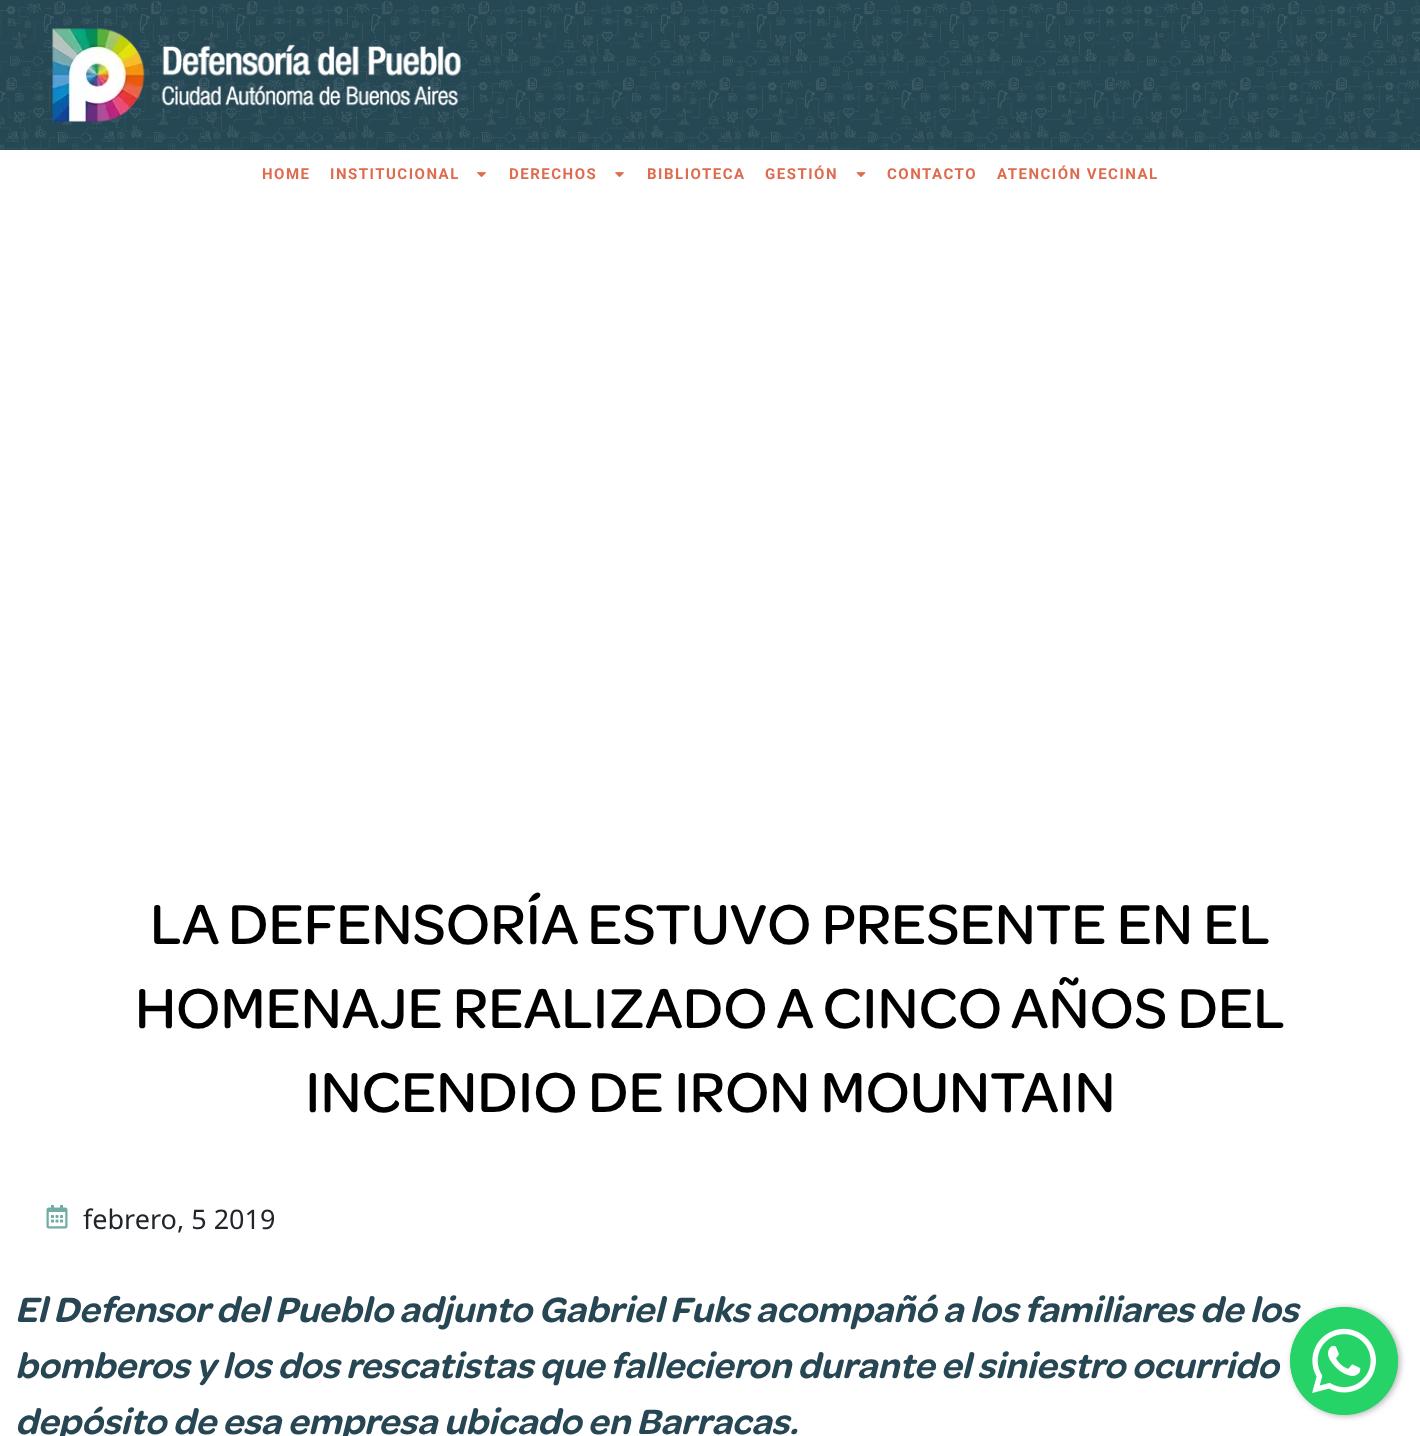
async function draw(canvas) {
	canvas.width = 1420;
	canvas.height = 1436;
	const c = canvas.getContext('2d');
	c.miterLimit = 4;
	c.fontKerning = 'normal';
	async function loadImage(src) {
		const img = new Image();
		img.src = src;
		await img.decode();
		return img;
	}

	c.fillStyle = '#fff';
	c.fillRect(0, 0, 1420, 1436);
	c.fillStyle = '#264754';
	c.fillRect(0, 0, 1420, 150);
	c.drawImage(await loadImage('img1.png'), 0, 0, 1420, 150);
	c.drawImage(await loadImage('img2.png'), 52, 28, 409, 94);
	c.letterSpacing = '1.5px';
	c.font = 'bold 15px Roboto';
	c.fillStyle = '#df6b4e';
	c.fillText('HOME', 262, 179);
	c.fillText('INSTITUCIONAL', 330, 179);
	c.drawImage(await loadImage('img3.png'), 477, 172, 9, 5);
	c.fillText('DERECHOS', 509, 179);
	c.drawImage(await loadImage('img3.png'), 615, 172, 9, 5);
	c.fillText('BIBLIOTECA', 647, 179);
	c.fillText('GESTIÓN', 765, 179);
	c.drawImage(await loadImage('img4.png'), 856, 172, 10, 5);
	c.fillText('CONTACTO', 887, 179);
	c.fillText('ATENCIÓN VECINAL', 997, 179);
	c.letterSpacing = '0px';
	c.font = '500 60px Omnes';
	c.fillStyle = '#000';
	for (const [text, x, y] of [
		['LA DEFENSORÍA ESTUVO PRESENTE EN EL', 150, 944],
		['HOMENAJE REALIZADO A CINCO AÑOS DEL', 135, 1028],
		['INCENDIO DE IRON MOUNTAIN', 305, 1112],
	]) {
		c.fillText(text, x, y);
	}
	c.drawImage(await loadImage('img5.png'), 46, 1205, 22, 24);
	c.font = '27px Noto Sans';
	c.fillStyle = '#212529';
	c.fillText('febrero, 5 2019', 83, 1229);
	c.font = 'italic 600 37.5px Omnes';
	c.fillStyle = '#264653';
	for (const [text, x, y] of [
		['El Defensor del Pueblo adjunto Gabriel Fuks acompañó a los familiares de los', 15, 1322],
		['bomberos y los dos rescatistas que fallecieron durante el siniestro ocurrido', 15, 1378],
		['depósito de esa empresa ubicado en Barracas.', 15, 1434],
	]) {
		c.fillText(text, x, y);
	}
	c.fillStyle = '#3c3c3c66';
	c.filter = 'blur(3px)';
	c.beginPath();
	c.roundRect(1292, 1308, 108, 108, 54);
	c.fill();
	c.filter = 'none';
	c.fillStyle = '#25d366';
	c.beginPath();
	c.arc(1344, 1361, 54, 0, 2 * Math.PI);
	c.fill();
	c.drawImage(await loadImage('img6.png'), 1290, 1307, 108, 108);
}

draw(document.querySelector('canvas'));
